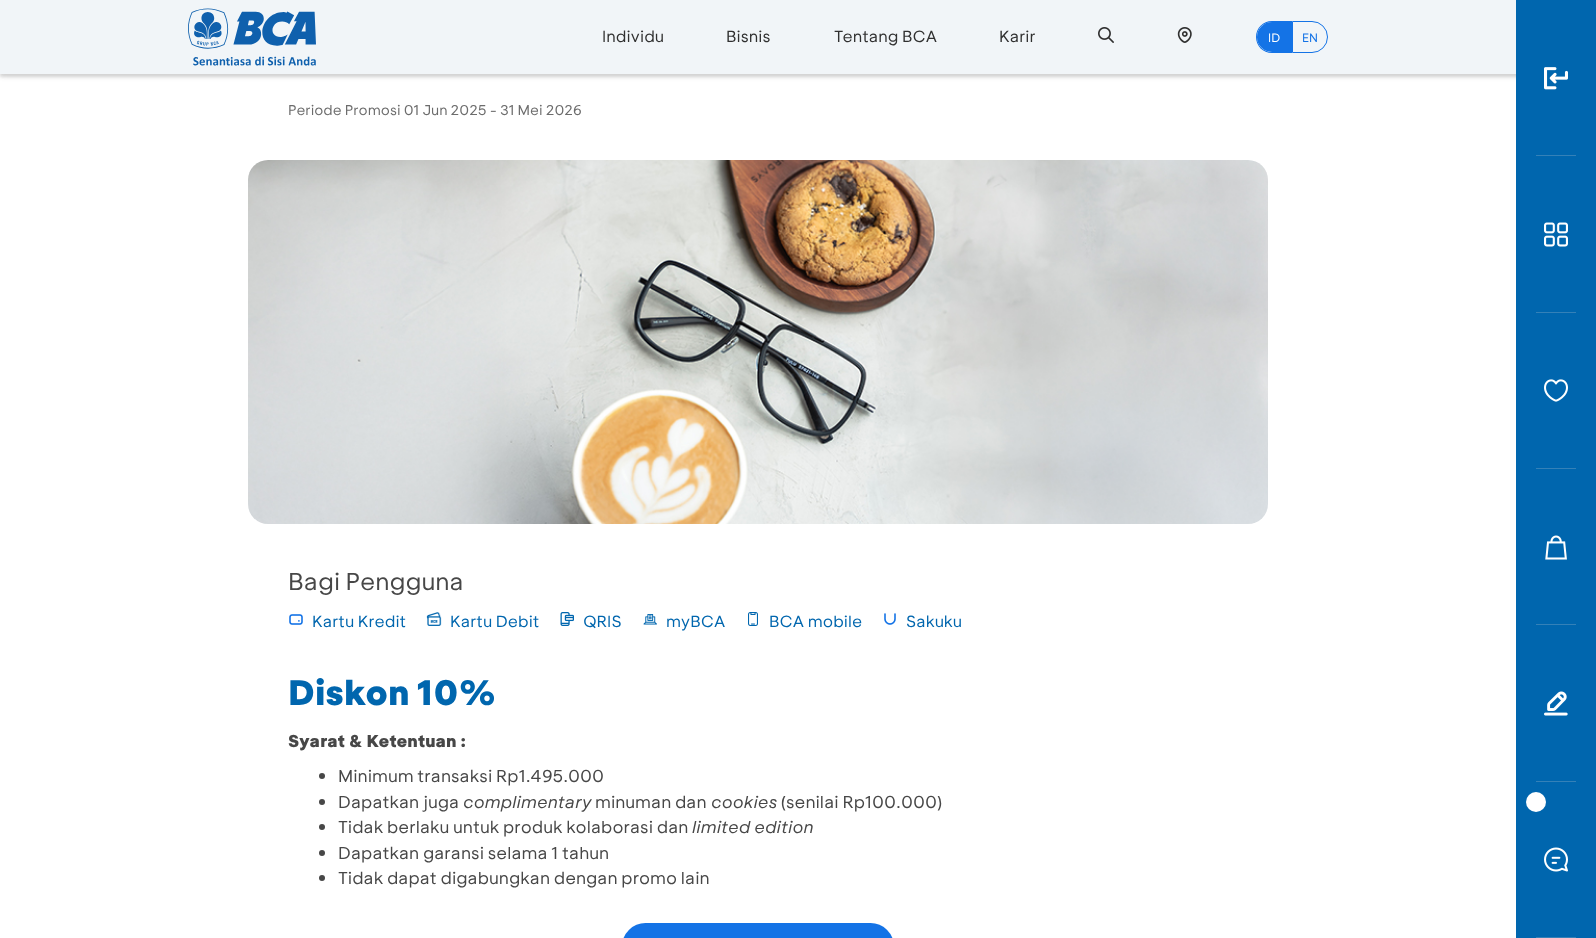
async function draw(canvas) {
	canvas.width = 1596;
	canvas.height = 938;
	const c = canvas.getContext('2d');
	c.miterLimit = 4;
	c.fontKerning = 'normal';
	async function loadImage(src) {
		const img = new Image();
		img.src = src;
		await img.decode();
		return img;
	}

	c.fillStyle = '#fff';
	c.fillRect(0, 0, 1596, 938);
	c.fillStyle = '#0000001a';
	c.filter = 'blur(1.5px)';
	c.beginPath();
	c.rect(0, 3, 1596, 74);
	c.fill();
	c.filter = 'none';
	c.fillStyle = '#0000000d';
	c.filter = 'blur(2px)';
	c.beginPath();
	c.rect(0, 3, 1596, 74);
	c.fill();
	c.filter = 'none';
	c.filter = 'blur(4px)';
	c.beginPath();
	c.rect(0, 1, 1596, 74);
	c.fill();
	c.filter = 'none';
	c.fillStyle = '#f1f5f8';
	c.fillRect(0, 0, 1516, 74);
	c.drawImage(await loadImage('img1.png'), 188, 8, 128, 58);
	c.font = '16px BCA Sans';
	c.fillStyle = '#303030';
	for (const [text, x, y] of [
		['Individu', 602, 42],
		['Bisnis', 726, 42],
		['Tentang BCA', 834, 42],
		['Karir', 999, 42],
	]) {
		c.fillText(text, x, y);
	}
	c.drawImage(await loadImage('img2.png'), 1098, 27, 16, 16);
	c.drawImage(await loadImage('img3.png'), 1177, 27, 15, 16);
	c.fillStyle = '#1473e6';
	c.beginPath();
	c.roundRect(1257, 22, 35, 30, [15, 0, 0, 15]);
	c.fill();
	c.beginPath();
	c.moveTo(1272, 21);
	c.lineTo(1292, 21);
	c.lineTo(1292, 53);
	c.lineTo(1272, 53);
	c.bezierCurveTo(1263, 53, 1256, 46, 1256, 37);
	c.bezierCurveTo(1256, 28, 1263, 21, 1272, 21);
	c.closePath();
	c.moveTo(1272, 22);
	c.lineTo(1292, 22);
	c.lineTo(1292, 52);
	c.lineTo(1272, 52);
	c.bezierCurveTo(1263.5, 52, 1257, 45.5, 1257, 37);
	c.bezierCurveTo(1257, 28.5, 1263.5, 22, 1272, 22);
	c.closePath();
	c.fill('evenodd');
	c.font = '12px BCA Sans';
	c.fillStyle = '#fff';
	c.fillText('ID', 1268, 42);
	c.beginPath();
	c.roundRect(1292.5, 21.5, 35, 31, [0, 15.5, 15.5, 0]);
	c.strokeStyle = '#1473e6';
	c.stroke();
	c.fillStyle = '#1473e6';
	c.fillText('EN', 1302, 42);
	c.fillStyle = '#0066ae';
	c.fillRect(1516, 0, 80, 938);
	c.drawImage(await loadImage('img4.png'), 1544, 67, 24, 23);
	c.fillStyle = '#3481b8';
	c.fillRect(1536, 155, 40, 1);
	c.drawImage(await loadImage('img5.png'), 1544, 222, 24, 25);
	c.fillRect(1536, 312, 40, 1);
	c.drawImage(await loadImage('img6.png'), 1544, 379, 24, 23);
	c.fillRect(1536, 468, 40, 1);
	c.drawImage(await loadImage('img7.png'), 1545, 535, 22, 25);
	c.fillRect(1536, 624, 40, 1);
	c.drawImage(await loadImage('img8.png'), 1544, 691, 24, 25);
	c.fillRect(1536, 781, 40, 1);
	c.fillStyle = '#fff';
	c.beginPath();
	c.arc(1536, 802, 10, 0, 2 * Math.PI);
	c.fill();
	c.drawImage(await loadImage('img9.png'), 1544, 847, 24, 25);
	c.fillStyle = '#3481b8';
	c.fillRect(1536, 937, 40, 1);
	c.font = '14px BCA Sans';
	c.fillStyle = '#6c6c6c';
	c.fillText('Periode Promosi 01 Jun 2025 - 31 Mei 2026', 288, 115);
	c.drawImage(await loadImage('img10.png'), 248, 160, 1020, 364);
	c.font = '24px BCA Sans';
	c.fillStyle = '#474747';
	c.fillText('Bagi Pengguna', 288, 590);
	c.drawImage(await loadImage('img11.png'), 289, 614, 14, 11);
	c.font = '16px BCA Sans';
	c.fillStyle = '#0066ae';
	c.fillText('Kartu Kredit', 312, 627);
	c.drawImage(await loadImage('img12.png'), 426, 612, 16, 14);
	c.fillText('Kartu Debit', 450, 627);
	c.drawImage(await loadImage('img13.png'), 560, 612, 14, 14);
	c.fillText('QRIS', 583, 627);
	c.drawImage(await loadImage('img14.png'), 643, 614, 14, 11);
	c.fillText('myBCA', 666, 627);
	c.drawImage(await loadImage('img15.png'), 748, 612, 10, 14);
	c.fillText('BCA mobile', 769, 627);
	c.drawImage(await loadImage('img16.png'), 884, 613, 12, 12);
	c.fillText('Sakuku', 906, 627);
	c.font = '800 35px BCA Sans';
	c.fillText('Diskon 10%', 288, 705);
	c.font = '800 17px BCA Sans';
	c.fillStyle = '#474747';
	c.fillText('Syarat & Ketentuan :', 288, 747);
	c.beginPath();
	c.arc(322, 776, 3, 0, 2 * Math.PI);
	c.fill();
	c.font = '17px BCA Sans';
	c.fillText('Minimum transaksi Rp1.495.000', 338, 782);
	c.beginPath();
	c.arc(322, 802, 3, 0, 2 * Math.PI);
	c.fill();
	c.fillText('Dapatkan juga', 338, 808);
	c.font = 'italic 17px BCA Sans';
	c.fillText('complimentary', 463, 808);
	c.font = '17px BCA Sans';
	c.fillText('minuman dan', 595, 808);
	c.font = 'italic 17px BCA Sans';
	c.fillText('cookies', 711, 808);
	c.font = '17px BCA Sans';
	c.fillText('(senilai Rp100.000)', 781, 808);
	c.beginPath();
	c.arc(322, 827, 3, 0, 2 * Math.PI);
	c.fill();
	c.fillText('Tidak berlaku untuk produk kolaborasi dan', 338, 833);
	c.font = 'italic 17px BCA Sans';
	c.fillText('limited edition', 692, 833);
	c.beginPath();
	c.arc(322, 853, 3, 0, 2 * Math.PI);
	c.fill();
	c.font = '17px BCA Sans';
	c.fillText('Dapatkan garansi selama 1 tahun', 338, 859);
	c.beginPath();
	c.arc(322, 878, 3, 0, 2 * Math.PI);
	c.fill();
	c.fillText('Tidak dapat digabungkan dengan promo lain', 338, 884);
	c.fillStyle = '#1473e6';
	c.beginPath();
	c.roundRect(622, 923, 272, 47, 32);
	c.fill();
}

draw(document.querySelector('canvas'));
